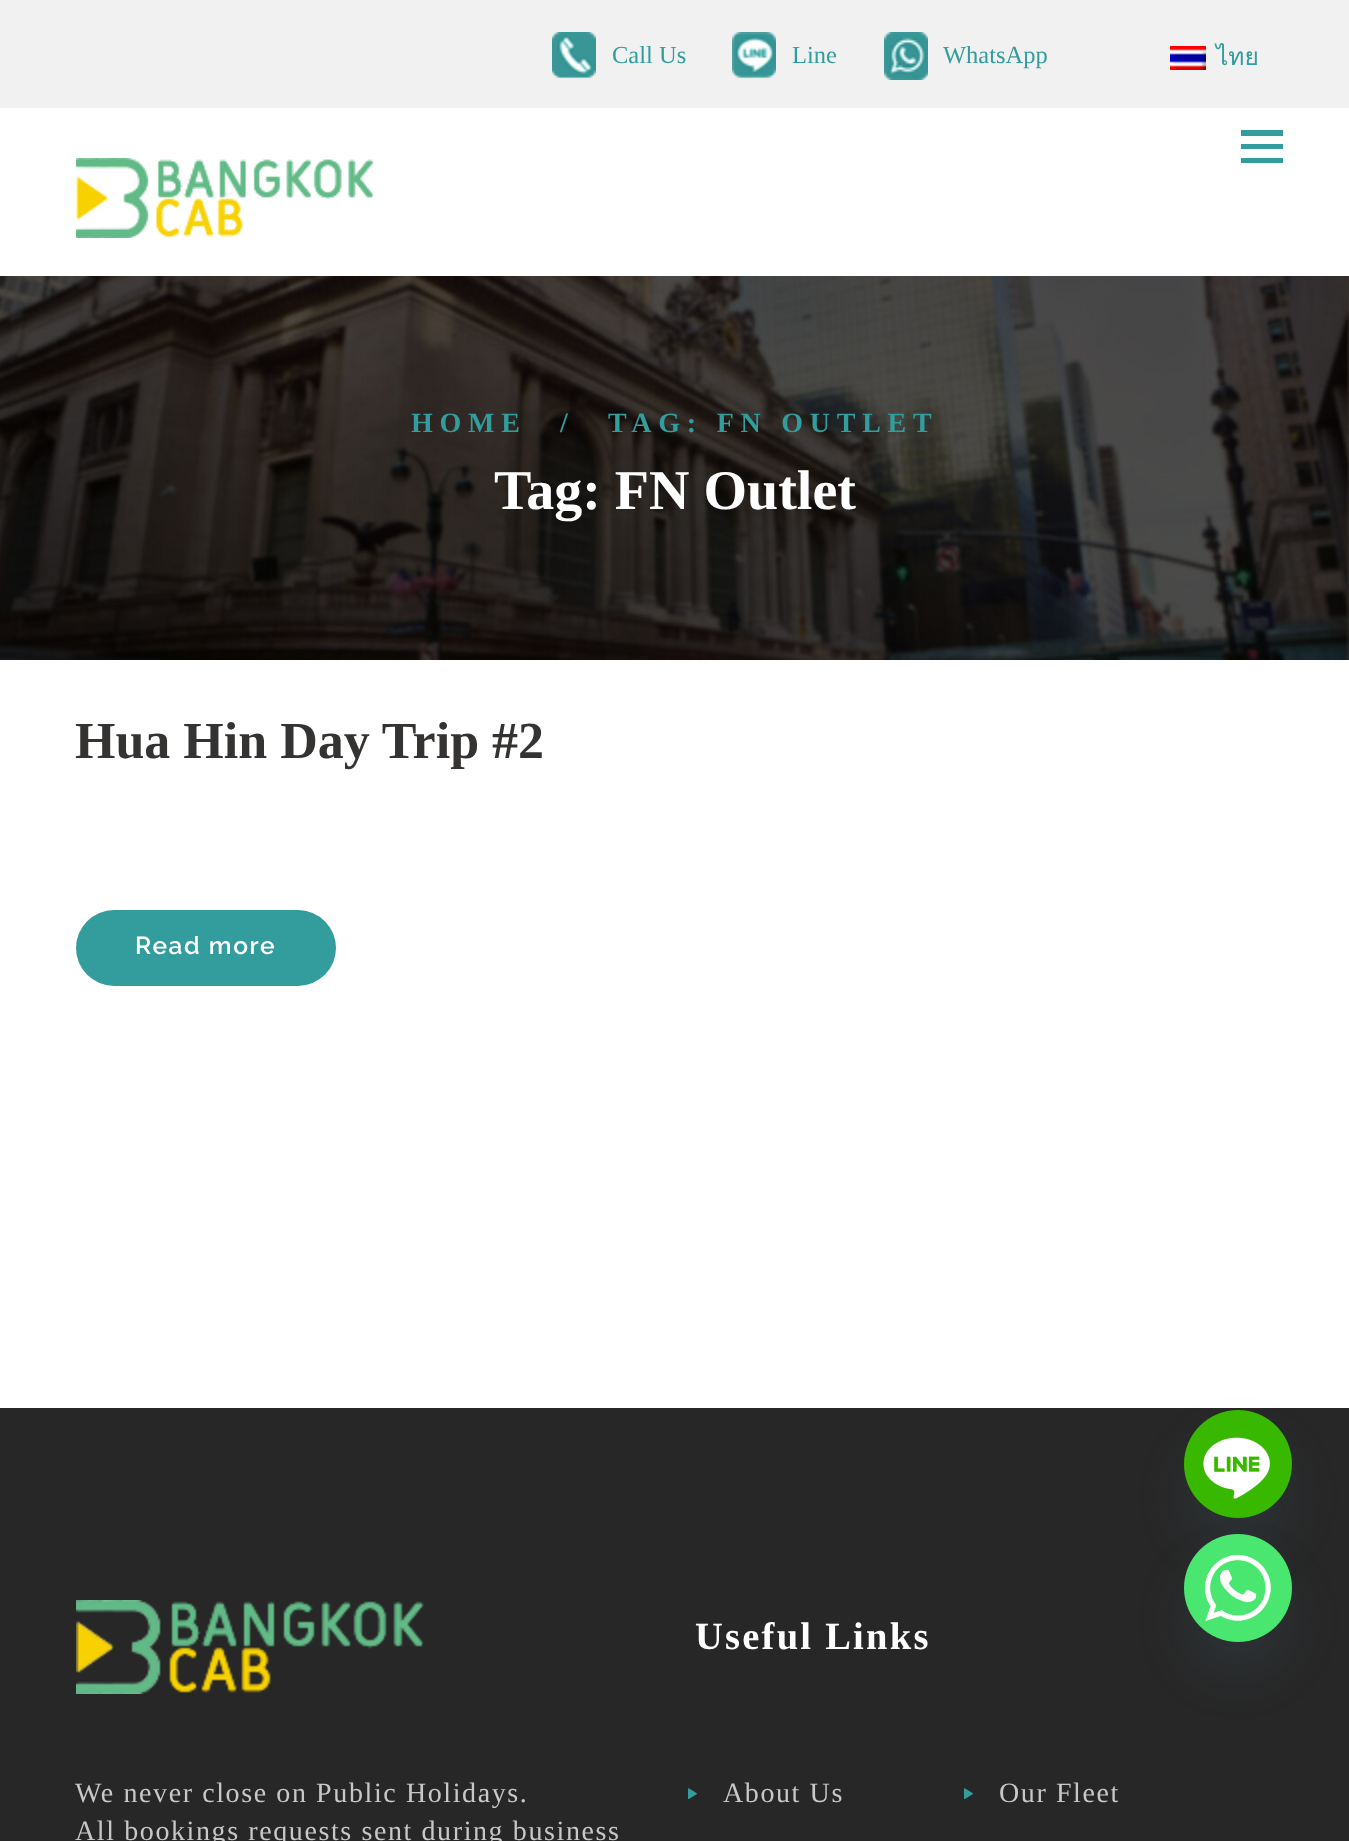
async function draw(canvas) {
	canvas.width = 1349;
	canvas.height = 1841;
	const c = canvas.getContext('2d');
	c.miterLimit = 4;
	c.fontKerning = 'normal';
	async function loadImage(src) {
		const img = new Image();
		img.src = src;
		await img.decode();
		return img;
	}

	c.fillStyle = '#fff';
	c.fillRect(0, 0, 1349, 1841);
	c.fillStyle = '#f1f1f1';
	c.fillRect(0, 0, 1349, 108);
	c.drawImage(await loadImage('img1.png'), 552, 32, 44, 47);
	c.font = '24.5px Liberation Serif';
	c.fillStyle = '#329d9c';
	c.fillText('Call Us', 612, 63);
	c.drawImage(await loadImage('img2.png'), 732, 32, 44, 47);
	c.fillText('Line', 792, 63);
	c.drawImage(await loadImage('img3.png'), 884, 32, 44, 48);
	c.fillText('WhatsApp', 943, 63);
	c.drawImage(await loadImage('img4.png'), 1170, 46, 36, 24);
	c.font = '24.5px Loma';
	c.fillText('ไทย', 1216, 65);
	c.beginPath();
	c.moveTo(1241, 163);
	c.lineTo(1283, 163);
	c.lineTo(1283, 158);
	c.lineTo(1241, 158);
	c.closePath();
	c.moveTo(1241, 149);
	c.lineTo(1283, 149);
	c.lineTo(1283, 144);
	c.lineTo(1241, 144);
	c.closePath();
	c.moveTo(1241, 130);
	c.lineTo(1241, 136);
	c.lineTo(1283, 136);
	c.lineTo(1283, 130);
	c.closePath();
	c.fill();
	c.drawImage(await loadImage('img5.png'), 76, 158, 298, 80);
	c.drawImage(await loadImage('img6.png'), 0, 276, 1349, 384);
	c.letterSpacing = '6.75px';
	c.font = 'bold 28px Liberation Serif';
	for (const [text, x, y] of [
		['HOME', 411, 432],
		['/', 560, 432],
		['TAG: FN OUTLET', 608, 432],
	]) {
		c.fillText(text, x, y);
	}
	c.letterSpacing = '0px';
	c.font = 'bold 56px Liberation Serif';
	c.fillStyle = '#fff';
	c.fillText('Tag: FN Outlet', 494, 509);
	c.font = 'bold 52px Liberation Serif';
	c.fillStyle = '#343332';
	c.fillText('Hua Hin Day Trip #2', 75, 758);
	c.fillStyle = '#329d9c';
	c.beginPath();
	c.roundRect(76, 910, 260, 76, 38);
	c.fill();
	c.letterSpacing = '1.6px';
	c.font = '600 24.5px Raleway';
	c.fillStyle = '#fff';
	c.fillText('Read more', 135, 954);
	c.fillStyle = '#272727';
	c.fillRect(0, 1408, 1349, 433);
	c.letterSpacing = '2.25px';
	c.font = 'bold 38.5px Liberation Serif';
	c.fillStyle = '#fff';
	c.fillText('Useful Links', 695, 1649);
	c.drawImage(await loadImage('img7.png'), 688, 1788, 9, 11);
	c.letterSpacing = '1.6px';
	c.font = '28px Liberation Serif';
	c.fillStyle = '#c8c8c8';
	c.fillText('About Us', 723, 1802);
	c.drawImage(await loadImage('img7.png'), 964, 1788, 9, 11);
	c.fillText('Our Fleet', 999, 1802);
	c.drawImage(await loadImage('img8.png'), 76, 1600, 348, 94);
	c.fillText('We never close on Public Holidays.', 75, 1802);
	c.fillText('All bookings requests sent during business', 75, 1840);
	c.fillStyle = '#49687e29';
	c.filter = 'blur(24px)';
	c.beginPath();
	c.roundRect(1184, 1442, 108, 108, 54);
	c.fill();
	c.filter = 'none';
	c.drawImage(await loadImage('img9.png'), 1184, 1410, 108, 108);
	c.filter = 'blur(24px)';
	c.beginPath();
	c.roundRect(1184, 1566, 108, 108, 54);
	c.fill();
	c.filter = 'none';
	c.drawImage(await loadImage('img10.png'), 1184, 1534, 108, 108);
}

draw(document.querySelector('canvas'));
